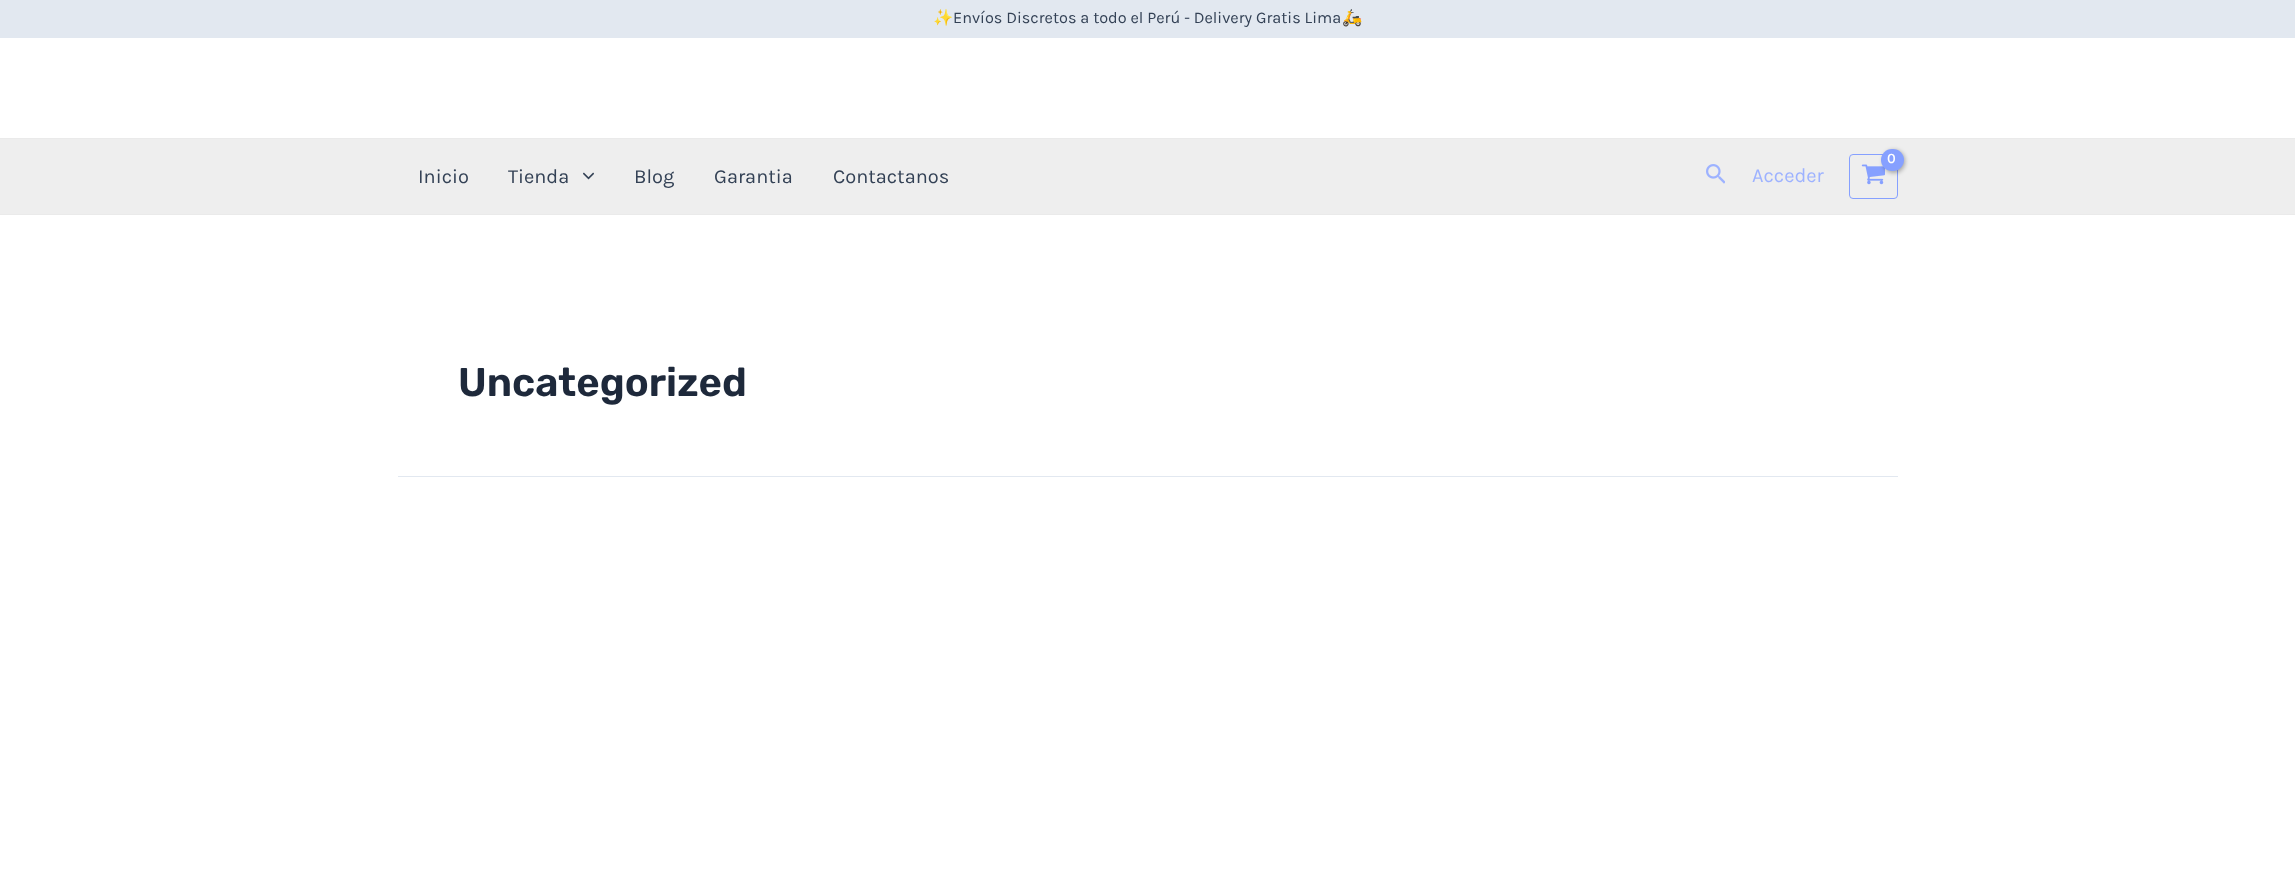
async function draw(canvas) {
	canvas.width = 2295;
	canvas.height = 895;
	const c = canvas.getContext('2d');
	c.miterLimit = 4;
	c.fontKerning = 'normal';
	async function loadImage(src) {
		const img = new Image();
		img.src = src;
		await img.decode();
		return img;
	}

	c.fillStyle = '#fff';
	c.fillRect(0, 0, 2295, 895);
	c.fillStyle = '#e2e8f0';
	c.fillRect(0, 0, 2295, 38);
	c.font = '16.25px Noto Color Emoji';
	c.fillStyle = '#334155';
	c.fillText('✨', 933, 23);
	c.font = '16.25px Karla';
	c.fillText('Envíos Discretos a todo el Perú - Delivery Gratis Lima', 953, 23);
	c.font = '16.25px Noto Color Emoji';
	c.fillText('🛵', 1342, 23);
	for (const [x, y, w, h, color] of [
		[0, 138, 2295, 1, '#eaeaea'],
		[0, 139, 2295, 75, '#eee'],
		[0, 214, 2295, 1, '#eaeaea'],
	]) {
		c.fillStyle = color;
		c.fillRect(x, y, w, h);
	}
	c.font = '20px Karla';
	c.fillStyle = '#334155';
	c.fillText('Inicio', 418, 183);
	c.fillText('Tienda', 508, 183);
	c.drawImage(await loadImage('img1.png'), 583, 172, 11, 8);
	for (const [text, x, y] of [
		['Blog', 634, 183],
		['Garantia', 714, 183],
		['Contactanos', 833, 183],
	]) {
		c.fillText(text, x, y);
	}
	c.beginPath();
	c.roundRect(1849.5, 154.5, 48, 44, 3.5);
	c.strokeStyle = '#86a0ff';
	c.stroke();
	c.drawImage(await loadImage('img2.png'), 1861, 164, 24, 21);
	c.fillStyle = '#0000004d';
	c.filter = 'blur(2px)';
	c.beginPath();
	c.roundRect(1883, 150, 22, 23, 11);
	c.fill();
	c.filter = 'none';
	c.fillStyle = '#86a0ff';
	c.beginPath();
	c.roundRect(1881, 149, 23, 22, 11);
	c.fill();
	c.letterSpacing = '-1px';
	c.font = 'bold 14px Karla';
	c.fillStyle = '#fff';
	c.fillText('0', 1887, 163);
	c.drawImage(await loadImage('img3.png'), 1706, 164, 19, 20);
	c.letterSpacing = '0px';
	c.font = '20px Karla';
	c.fillStyle = '#9db2ff';
	c.fillText('Acceder', 1752, 182);
	c.fillStyle = '#e2e8f0';
	c.fillRect(398, 476, 1500, 1);
	c.font = '600 40px Rubik';
	c.fillStyle = '#1e293b';
	c.fillText('Uncategorized', 458, 396);
}

draw(document.querySelector('canvas'));
